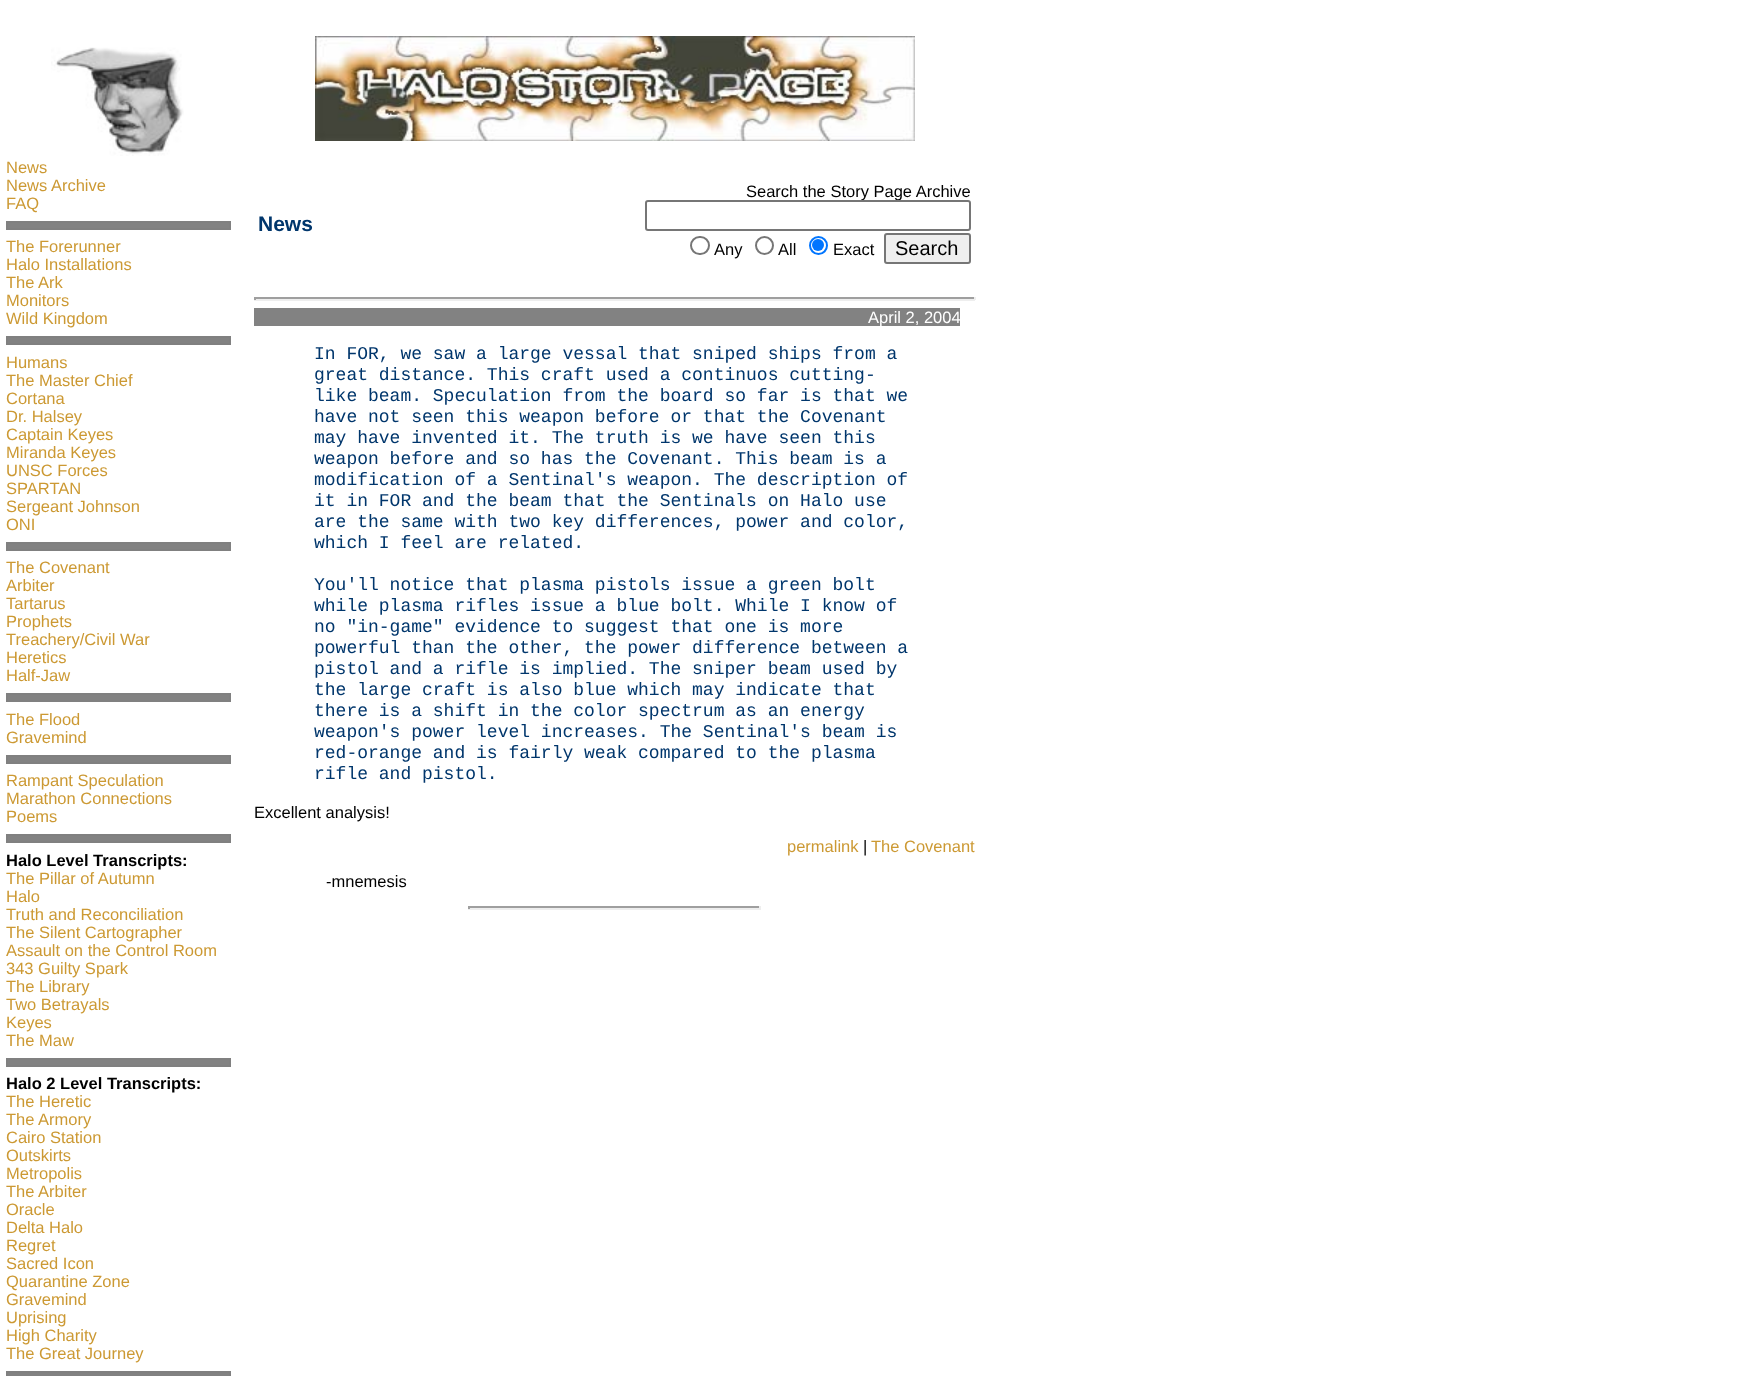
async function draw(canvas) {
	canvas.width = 1743;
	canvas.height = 1376;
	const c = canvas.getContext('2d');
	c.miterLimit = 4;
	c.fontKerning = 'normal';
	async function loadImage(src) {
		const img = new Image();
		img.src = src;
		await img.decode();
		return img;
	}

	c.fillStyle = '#fff';
	c.fillRect(0, 0, 1743, 1376);
	c.drawImage(await loadImage('img1.png'), 51, 47, 133, 109);
	c.font = '16.5px Liberation Sans';
	c.fillStyle = '#c93';
	for (const [text, x, y] of [
		['News', 6, 173],
		['News Archive', 6, 191],
		['FAQ', 6, 209],
	]) {
		c.fillText(text, x, y);
	}
	c.fillStyle = '#828282';
	c.beginPath();
	c.rect(7, 222, 223, 7);
	c.fill();
	c.strokeStyle = '#808080';
	c.lineWidth = 2;
	c.stroke();
	c.fillStyle = '#c93';
	for (const [text, x, y] of [
		['The Forerunner', 6, 252],
		['Halo Installations', 6, 270],
		['The Ark', 6, 288],
		['Monitors', 6, 306],
		['Wild Kingdom', 6, 324],
	]) {
		c.fillText(text, x, y);
	}
	c.fillStyle = '#828282';
	c.beginPath();
	c.rect(7, 337, 223, 7);
	c.fill();
	c.stroke();
	c.fillStyle = '#c93';
	for (const [text, x, y] of [
		['Humans', 6, 368],
		['The Master Chief', 6, 386],
		['Cortana', 6, 404],
		['Dr. Halsey', 6, 422],
		['Captain Keyes', 6, 440],
		['Miranda Keyes', 6, 458],
		['UNSC Forces', 6, 476],
		['SPARTAN', 6, 494],
		['Sergeant Johnson', 6, 512],
		['ONI', 6, 530],
	]) {
		c.fillText(text, x, y);
	}
	c.fillStyle = '#828282';
	c.beginPath();
	c.rect(7, 543, 223, 7);
	c.fill();
	c.stroke();
	c.fillStyle = '#c93';
	for (const [text, x, y] of [
		['The Covenant', 6, 573],
		['Arbiter', 6, 591],
		['Tartarus', 6, 609],
		['Prophets', 6, 627],
		['Treachery/Civil War', 6, 645],
		['Heretics', 6, 663],
		['Half-Jaw', 6, 681],
	]) {
		c.fillText(text, x, y);
	}
	c.fillStyle = '#828282';
	c.beginPath();
	c.rect(7, 694, 223, 7);
	c.fill();
	c.stroke();
	c.fillStyle = '#c93';
	c.fillText('The Flood', 6, 725);
	c.fillText('Gravemind', 6, 743);
	c.fillStyle = '#828282';
	c.beginPath();
	c.rect(7, 756, 223, 7);
	c.fill();
	c.stroke();
	c.fillStyle = '#c93';
	for (const [text, x, y] of [
		['Rampant Speculation', 6, 786],
		['Marathon Connections', 6, 804],
		['Poems', 6, 822],
	]) {
		c.fillText(text, x, y);
	}
	c.fillStyle = '#828282';
	c.beginPath();
	c.rect(7, 835, 223, 7);
	c.fill();
	c.stroke();
	c.font = 'bold 16.5px Liberation Sans';
	c.fillStyle = '#000';
	c.fillText('Halo Level Transcripts:', 6, 866);
	c.font = '16.5px Liberation Sans';
	c.fillStyle = '#c93';
	for (const [text, x, y] of [
		['The Pillar of Autumn', 6, 884],
		['Halo', 6, 902],
		['Truth and Reconciliation', 6, 920],
		['The Silent Cartographer', 6, 938],
		['Assault on the Control Room', 6, 956],
		['343 Guilty Spark', 6, 974],
		['The Library', 6, 992],
		['Two Betrayals', 6, 1010],
		['Keyes', 6, 1028],
		['The Maw', 6, 1046],
	]) {
		c.fillText(text, x, y);
	}
	c.fillStyle = '#828282';
	c.beginPath();
	c.rect(7, 1059, 223, 7);
	c.fill();
	c.stroke();
	c.font = 'bold 16.5px Liberation Sans';
	c.fillStyle = '#000';
	c.fillText('Halo 2 Level Transcripts:', 6, 1089);
	c.font = '16.5px Liberation Sans';
	c.fillStyle = '#c93';
	for (const [text, x, y] of [
		['The Heretic', 6, 1107],
		['The Armory', 6, 1125],
		['Cairo Station', 6, 1143],
		['Outskirts', 6, 1161],
		['Metropolis', 6, 1179],
		['The Arbiter', 6, 1197],
		['Oracle', 6, 1215],
		['Delta Halo', 6, 1233],
		['Regret', 6, 1251],
		['Sacred Icon', 6, 1269],
		['Quarantine Zone', 6, 1287],
		['Gravemind', 6, 1305],
		['Uprising', 6, 1323],
		['High Charity', 6, 1341],
		['The Great Journey', 6, 1359],
	]) {
		c.fillText(text, x, y);
	}
	c.fillStyle = '#828282';
	c.beginPath();
	c.rect(7, 1372, 223, 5);
	c.fill();
	c.stroke();
	c.drawImage(await loadImage('img2.png'), 315, 36, 600, 105);
	c.font = 'bold 21px Liberation Sans';
	c.fillStyle = '#00366c';
	c.fillText('News', 258, 231);
	c.font = '16.5px Liberation Sans';
	c.fillStyle = '#000';
	c.fillText('Search the Story Page Archive', 746, 197);
	c.fillStyle = '#fff';
	c.beginPath();
	c.roundRect(646, 201, 324, 29, 2);
	c.fill();
	c.strokeStyle = '#767676';
	c.stroke();
	c.beginPath();
	c.roundRect(691, 237, 18, 17, 8.5);
	c.stroke();
	c.fillStyle = '#000';
	c.fillText('Any', 714, 255);
	c.beginPath();
	c.arc(764.5, 245.5, 8.5, 0, 2 * Math.PI);
	c.stroke();
	c.fillText('All', 778, 255);
	c.beginPath();
	c.arc(818.5, 245.5, 8.5, 0, 2 * Math.PI);
	c.strokeStyle = '#0075ff';
	c.stroke();
	c.fillStyle = '#0075ff';
	c.beginPath();
	c.arc(818, 245, 6, 0, 2 * Math.PI);
	c.fill();
	c.fillStyle = '#000';
	c.fillText('Exact', 833, 255);
	c.fillStyle = '#efefef';
	c.beginPath();
	c.roundRect(885, 234, 85, 29, 2);
	c.fill();
	c.strokeStyle = '#767676';
	c.stroke();
	c.font = '20px Liberation Sans';
	c.fillStyle = '#000';
	c.fillText('Search', 895, 255);
	for (const [x, y, w, h, color] of [
		[254, 297, 721, 2, '#9f9f9f'],
		[974, 297, 2, 3, '#eee'],
		[254, 299, 721, 2, '#eee'],
		[254, 297, 2, 3, '#9f9f9f'],
		[254, 308, 706, 18, '#828282'],
	]) {
		c.fillStyle = color;
		c.fillRect(x, y, w, h);
	}
	c.font = '16.5px Liberation Sans';
	c.fillStyle = '#fff';
	c.fillText('April 2, 2004', 868, 323);
	c.font = '18px Liberation Mono';
	c.fillStyle = '#00366c';
	for (const [text, x, y] of [
		['In FOR, we saw a large vessal that sniped ships from a', 314, 359],
		['great distance. This craft used a continuos cutting-', 314, 380],
		['like beam. Speculation from the board so far is that we', 314, 401],
		['have not seen this weapon before or that the Covenant', 314, 422],
		['may have invented it. The truth is we have seen this', 314, 443],
		['weapon before and so has the Covenant. This beam is a', 314, 464],
		['modification of a Sentinal\'s weapon. The description of', 314, 485],
		['it in FOR and the beam that the Sentinals on Halo use', 314, 506],
		['are the same with two key differences, power and color,', 314, 527],
		['which I feel are related.', 314, 548],
		['You\'ll notice that plasma pistols issue a green bolt', 314, 590],
		['while plasma rifles issue a blue bolt. While I know of', 314, 611],
		['no "in-game" evidence to suggest that one is more', 314, 632],
		['powerful than the other, the power difference between a', 314, 653],
		['pistol and a rifle is implied. The sniper beam used by', 314, 674],
		['the large craft is also blue which may indicate that', 314, 695],
		['there is a shift in the color spectrum as an energy', 314, 716],
		['weapon\'s power level increases. The Sentinal\'s beam is', 314, 737],
		['red-orange and is fairly weak compared to the plasma', 314, 758],
		['rifle and pistol.', 314, 779],
	]) {
		c.fillText(text, x, y);
	}
	c.font = '16.5px Liberation Sans';
	c.fillStyle = '#000';
	c.fillText('Excellent analysis!', 254, 818);
	c.fillStyle = '#c93';
	c.fillText('permalink', 787, 852);
	c.fillStyle = '#000';
	c.fillText('|', 863, 852);
	c.fillStyle = '#c93';
	c.fillText('The Covenant', 871, 852);
	c.fillStyle = '#000';
	c.fillText('-mnemesis', 326, 887);
	for (const [x, y, w, h, color] of [
		[468, 906, 293, 2, '#9f9f9f'],
		[759, 906, 2, 3, '#eee'],
		[468, 908, 293, 2, '#eee'],
		[468, 906, 2, 3, '#9f9f9f'],
	]) {
		c.fillStyle = color;
		c.fillRect(x, y, w, h);
	}
}

draw(document.querySelector('canvas'));
